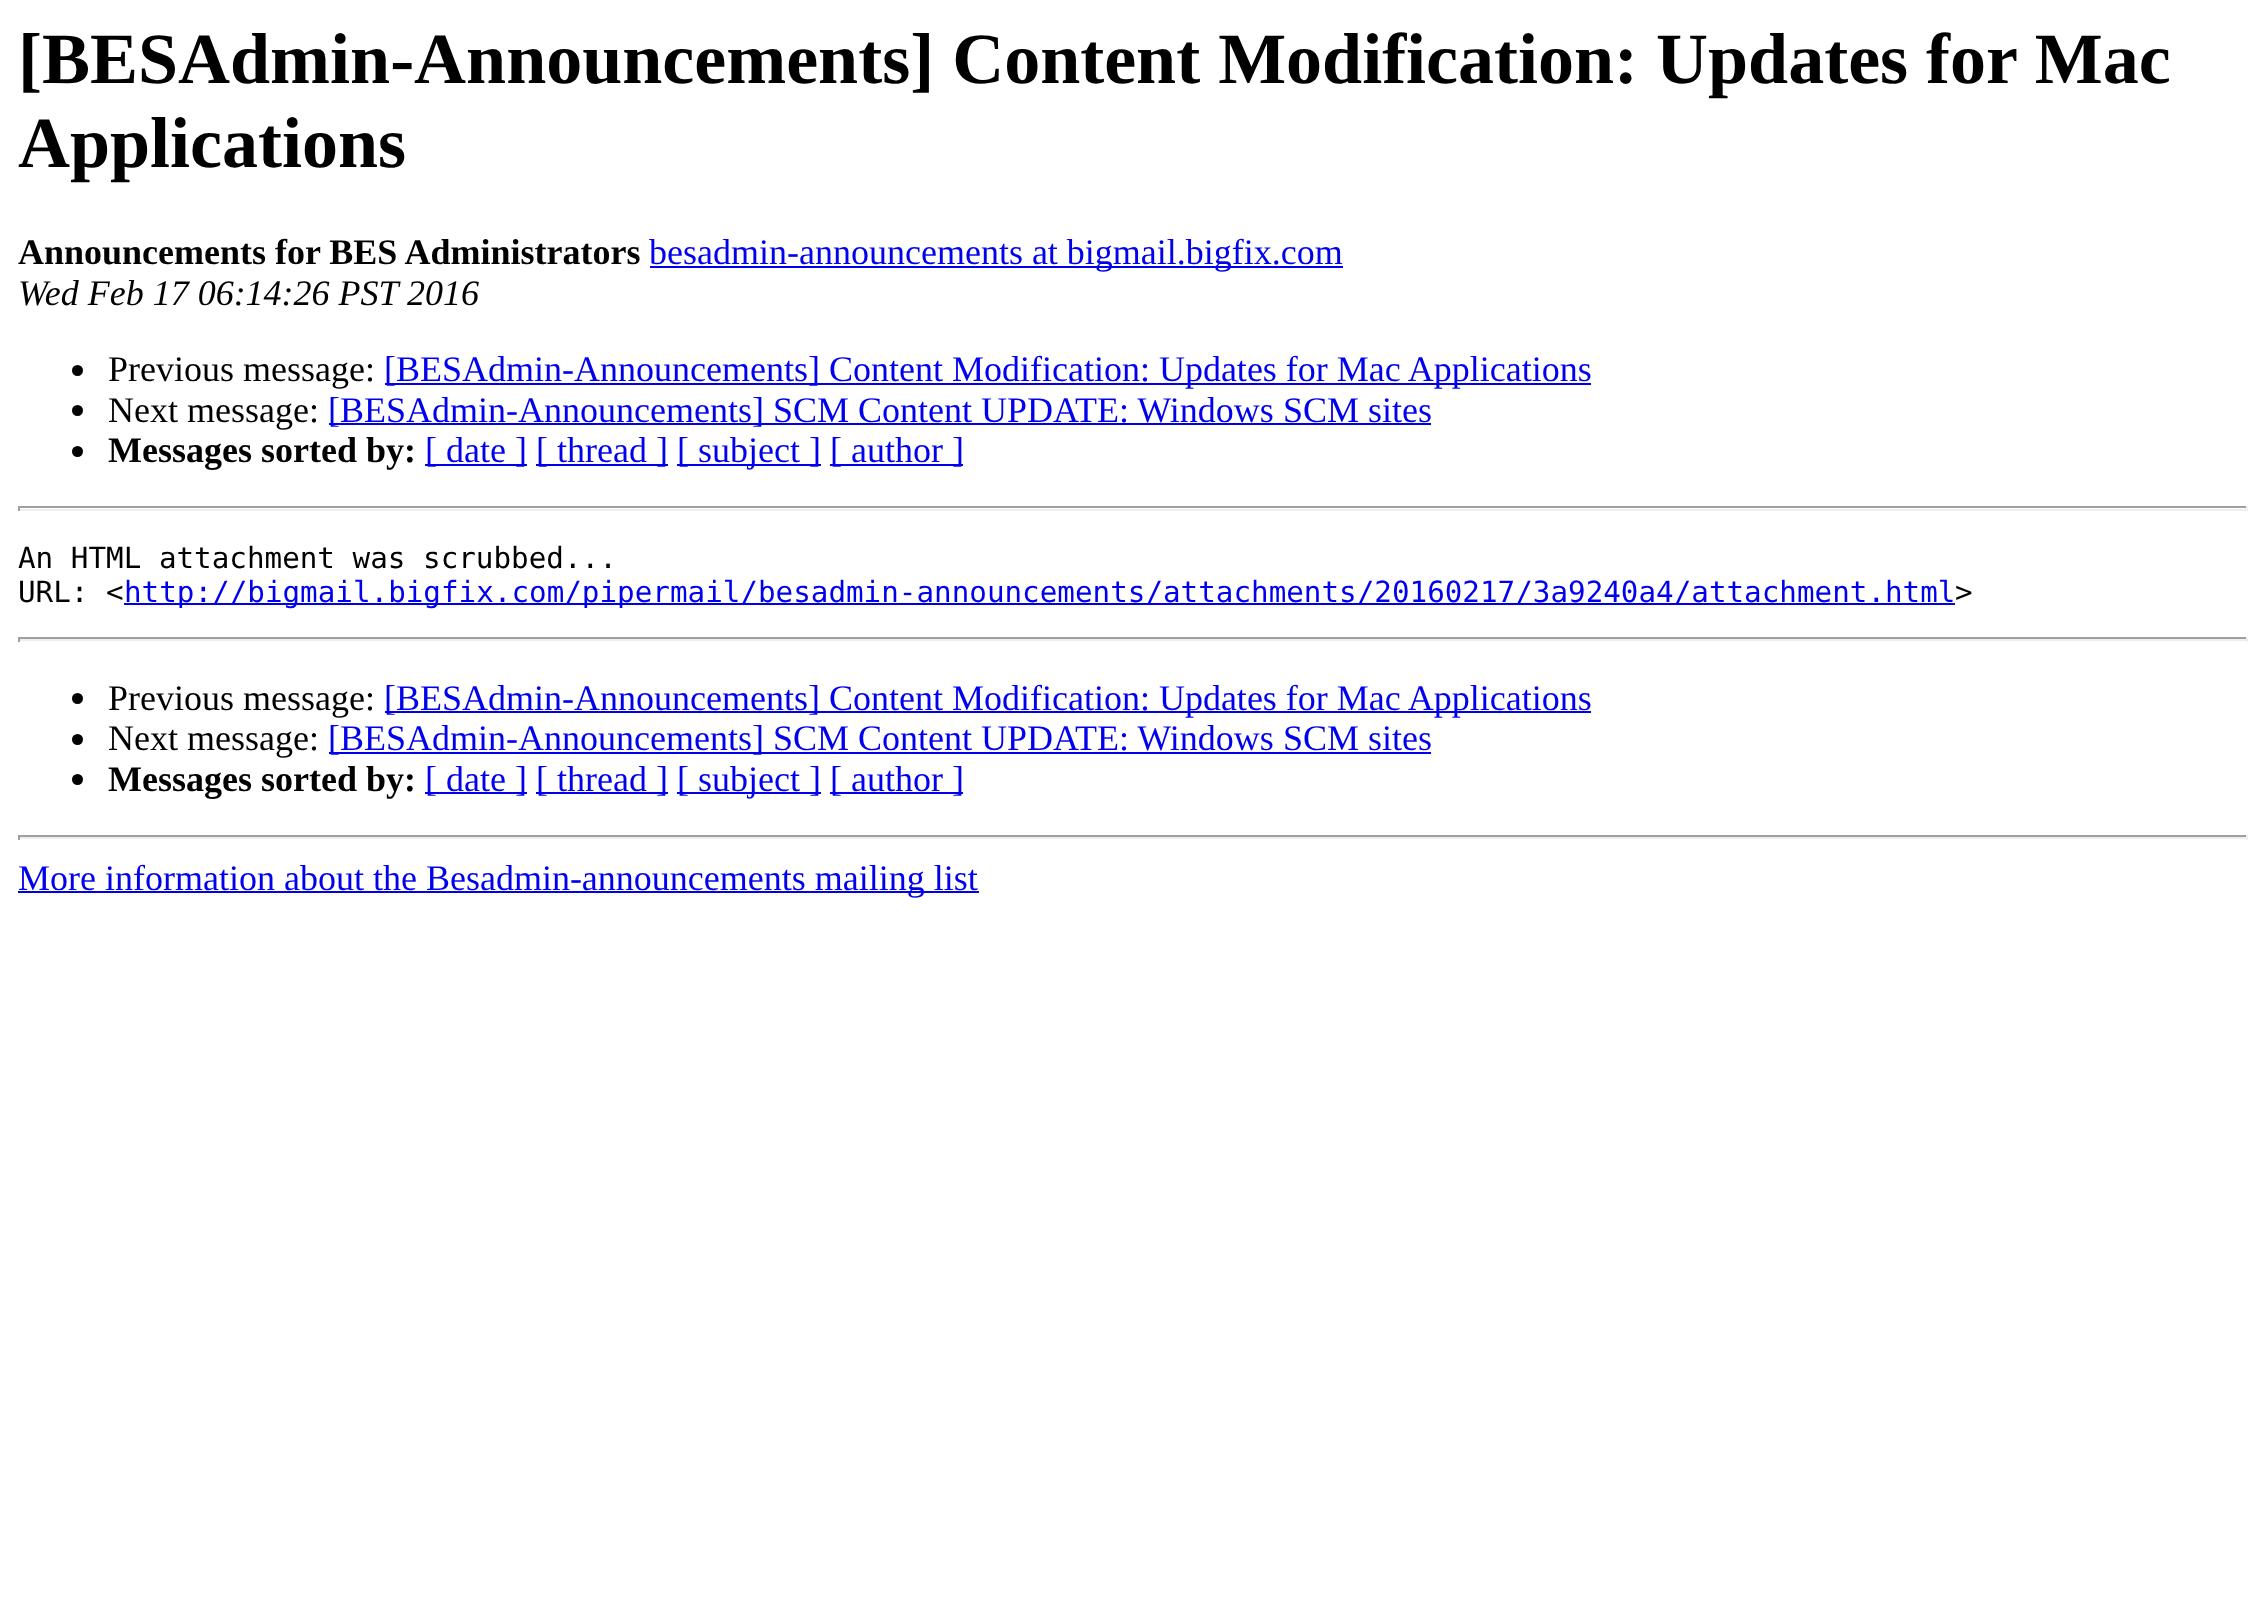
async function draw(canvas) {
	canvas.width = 2265;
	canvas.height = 1608;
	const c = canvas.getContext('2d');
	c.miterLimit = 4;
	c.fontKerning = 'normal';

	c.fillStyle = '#fff';
	c.fillRect(0, 0, 2265, 1608);
	c.font = 'bold 72px Liberation Serif';
	c.fillStyle = '#000';
	c.fillText('[BESAdmin-Announcements] Content Modification: Updates for Mac', 18, 83);
	c.fillText('Applications', 18, 167);
	c.font = 'bold 36px Liberation Serif';
	c.fillText('Announcements for BES Administrators', 18, 264);
	c.fillStyle = '#00e';
	c.fillRect(650, 266, 693, 2);
	c.font = '36px Liberation Serif';
	c.fillText('besadmin-announcements at bigmail.bigfix.com', 649, 264);
	c.font = 'italic 36px Liberation Serif';
	c.fillStyle = '#000';
	c.fillText('Wed Feb 17 06:14:26 PST 2016', 18, 305);
	c.beginPath();
	c.arc(77.5, 370.5, 5.5, 0, 2 * Math.PI);
	c.fill();
	c.font = '36px Liberation Serif';
	c.fillText('Previous message:', 108, 381);
	c.fillStyle = '#00e';
	c.fillRect(385, 383, 1206, 2);
	c.fillText('[BESAdmin-Announcements] Content Modification: Updates for Mac Applications', 384, 381);
	c.fillStyle = '#000';
	c.beginPath();
	c.arc(77.5, 410.5, 5.5, 0, 2 * Math.PI);
	c.fill();
	c.fillText('Next message:', 108, 422);
	c.fillStyle = '#00e';
	c.fillRect(329, 423, 1102, 2);
	c.fillText('[BESAdmin-Announcements] SCM Content UPDATE: Windows SCM sites', 328, 422);
	c.fillStyle = '#000';
	c.beginPath();
	c.arc(77.5, 451.5, 5.5, 0, 2 * Math.PI);
	c.fill();
	c.font = 'bold 36px Liberation Serif';
	c.fillText('Messages sorted by:', 108, 462);
	c.fillStyle = '#00e';
	c.fillRect(425, 464, 102, 2);
	c.font = '36px Liberation Serif';
	c.fillText('[ date ]', 425, 462);
	c.fillRect(536, 464, 132, 2);
	c.fillText('[ thread ]', 536, 462);
	c.fillRect(677, 464, 144, 2);
	c.fillText('[ subject ]', 677, 462);
	c.fillRect(830, 464, 133, 2);
	c.fillText('[ author ]', 830, 462);
	for (const [x, y, w, h, color] of [
		[18, 506, 2230, 2, '#9f9f9f'],
		[2246, 506, 2, 5, '#eee'],
		[18, 509, 2230, 2, '#eee'],
		[18, 506, 2, 5, '#9f9f9f'],
	]) {
		c.fillStyle = color;
		c.fillRect(x, y, w, h);
	}
	c.font = '29.25px DejaVu Sans Mono';
	c.fillStyle = '#000';
	c.fillText('An HTML attachment was scrubbed...', 18, 568);
	c.fillText('URL: <', 18, 602);
	c.fillStyle = '#00e';
	c.fillRect(124, 603, 1831, 2);
	c.fillText('http://bigmail.bigfix.com/pipermail/besadmin-announcements/attachments/20160217/3a9240a4/attachment.html', 124, 602);
	c.fillStyle = '#000';
	c.fillText('>', 1955, 602);
	for (const [x, y, w, h, color] of [
		[18, 637, 2230, 2, '#9f9f9f'],
		[2246, 637, 2, 5, '#eee'],
		[18, 639, 2230, 2, '#eee'],
		[18, 637, 2, 5, '#9f9f9f'],
	]) {
		c.fillStyle = color;
		c.fillRect(x, y, w, h);
	}
	c.fillStyle = '#000';
	c.beginPath();
	c.arc(77.5, 698.5, 5.5, 0, 2 * Math.PI);
	c.fill();
	c.font = '36px Liberation Serif';
	c.fillText('Previous message:', 108, 710);
	c.fillStyle = '#00e';
	c.fillRect(385, 711, 1206, 2);
	c.fillText('[BESAdmin-Announcements] Content Modification: Updates for Mac Applications', 384, 710);
	c.fillStyle = '#000';
	c.beginPath();
	c.arc(77.5, 739.5, 5.5, 0, 2 * Math.PI);
	c.fill();
	c.fillText('Next message:', 108, 750);
	c.fillStyle = '#00e';
	c.fillRect(329, 752, 1102, 2);
	c.fillText('[BESAdmin-Announcements] SCM Content UPDATE: Windows SCM sites', 328, 750);
	c.fillStyle = '#000';
	c.beginPath();
	c.arc(77.5, 779.5, 5.5, 0, 2 * Math.PI);
	c.fill();
	c.font = 'bold 36px Liberation Serif';
	c.fillText('Messages sorted by:', 108, 791);
	c.fillStyle = '#00e';
	c.fillRect(425, 792, 102, 2);
	c.font = '36px Liberation Serif';
	c.fillText('[ date ]', 425, 791);
	c.fillRect(536, 792, 132, 2);
	c.fillText('[ thread ]', 536, 791);
	c.fillRect(677, 792, 144, 2);
	c.fillText('[ subject ]', 677, 791);
	c.fillRect(830, 792, 133, 2);
	c.fillText('[ author ]', 830, 791);
	for (const [x, y, w, h, color] of [
		[18, 835, 2230, 2, '#9f9f9f'],
		[2246, 835, 2, 5, '#eee'],
		[18, 837, 2230, 2, '#eee'],
		[18, 835, 2, 5, '#9f9f9f'],
		[18, 891, 961, 2, '#00e'],
	]) {
		c.fillStyle = color;
		c.fillRect(x, y, w, h);
	}
	c.fillText('More information about the Besadmin-announcements mailing list', 18, 890);
}

draw(document.querySelector('canvas'));
